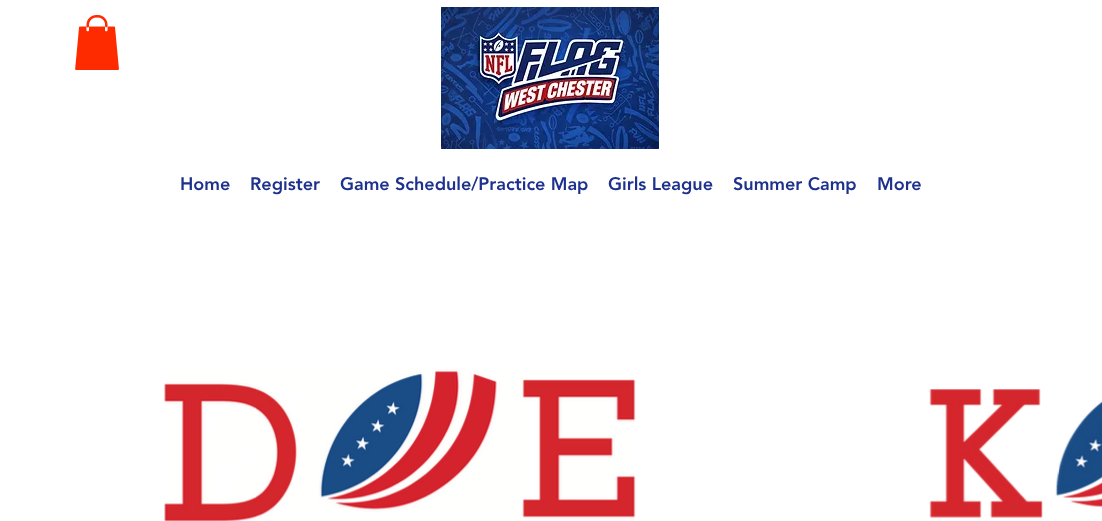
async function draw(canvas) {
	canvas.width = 1102;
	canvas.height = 521;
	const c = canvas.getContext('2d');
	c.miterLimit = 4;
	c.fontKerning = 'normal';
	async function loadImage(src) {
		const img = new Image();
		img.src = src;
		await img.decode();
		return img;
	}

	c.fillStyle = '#fff';
	c.fillRect(0, 0, 1102, 521);
	c.drawImage(await loadImage('img1.png'), 75, 15, 44, 55);
	c.drawImage(await loadImage('img2.png'), 441, 7, 218, 142);
	c.font = '900 18px "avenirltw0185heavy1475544"';
	c.fillStyle = '#1d318d';
	for (const [text, x, y] of [
		['Home', 180, 190],
		['Register', 250, 190],
		['Game Schedule/Practice Map', 340, 190],
		['Girls League', 608, 190],
		['Summer Camp', 733, 190],
		['More', 877, 190],
	]) {
		c.fillText(text, x, y);
	}
	c.drawImage(await loadImage('img3.png'), 164, 369, 472, 152);
	c.drawImage(await loadImage('img4.png'), 929, 389, 173, 129);
}

draw(document.querySelector('canvas'));
